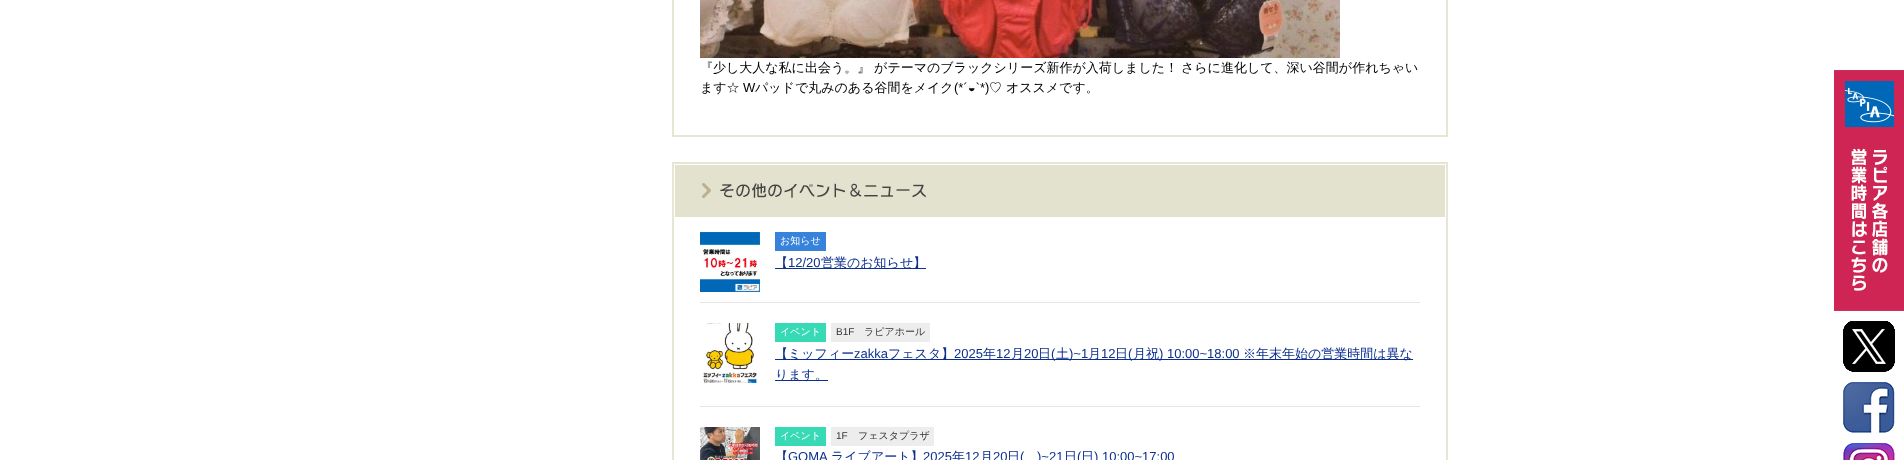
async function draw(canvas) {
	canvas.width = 1904;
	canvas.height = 460;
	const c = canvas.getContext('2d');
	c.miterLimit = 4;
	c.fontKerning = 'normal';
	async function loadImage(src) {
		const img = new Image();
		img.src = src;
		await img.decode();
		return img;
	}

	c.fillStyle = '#fff';
	c.fillRect(0, 0, 1904, 460);
	c.strokeStyle = '#e6e6d4';
	c.lineWidth = 2;
	c.strokeRect(673, -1, 774, 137);
	c.drawImage(await loadImage('img1.png'), 700, 0, 640, 58);
	c.font = '500 13px WenQuanYi Zen Hei';
	c.fillStyle = '#000';
	for (const [text, x, y] of [
		['『少し大人な私に出会う。』 がテーマのブラックシリーズ新作が入荷しました！', 700, 72],
		['さらに進化して、深い谷間が作れちゃい', 1181, 72],
		['ます☆', 700, 92],
	]) {
		c.fillText(text, x, y);
	}
	c.font = '13px Liberation Sans';
	c.fillText('W', 743, 92);
	c.font = '500 13px WenQuanYi Zen Hei';
	c.fillText('パッドで丸みのある谷間をメイク', 755, 92);
	c.font = '13px Liberation Sans';
	c.fillText('(*´◒`*)', 954, 92);
	c.font = '500 13px WenQuanYi Zen Hei';
	c.fillText('♡ オススメです。', 989, 92);
	c.strokeRect(673, 163, 774, 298);
	c.drawImage(await loadImage('img2.png'), 675, 165, 770, 52);
	c.fillStyle = '#e7e7e7';
	c.fillRect(700, 302, 720, 1);
	c.drawImage(await loadImage('img3.png'), 700, 232, 60, 60);
	c.fillStyle = '#3782da';
	c.fillRect(775, 232, 51, 19);
	c.font = '500 10px WenQuanYi Zen Hei';
	c.fillStyle = '#fff';
	c.fillText('お知らせ', 780, 244);
	c.fillStyle = '#0c308e';
	c.fillRect(775, 268, 151, 1);
	c.font = '500 13px WenQuanYi Zen Hei';
	c.fillText('【', 775, 267);
	c.font = '13px Liberation Sans';
	c.fillText('12/20', 788, 267);
	c.font = '500 13px WenQuanYi Zen Hei';
	c.fillText('営業のお知らせ】', 821, 267);
	c.fillStyle = '#e7e7e7';
	c.fillRect(700, 406, 720, 1);
	c.drawImage(await loadImage('img4.png'), 703, 323, 56, 60);
	c.fillStyle = '#37dab5';
	c.fillRect(775, 323, 51, 19);
	c.font = '500 10px WenQuanYi Zen Hei';
	c.fillStyle = '#fff';
	c.fillText('イベント', 780, 335);
	c.fillStyle = '#ededed';
	c.fillRect(831, 323, 99, 19);
	c.font = '10px Liberation Sans';
	c.fillStyle = '#333';
	c.fillText('B1F', 836, 335);
	c.font = '500 10px WenQuanYi Zen Hei';
	c.fillText('ラピアホール', 864, 335);
	c.fillStyle = '#0c308e';
	c.fillRect(775, 359, 638, 1);
	c.font = '500 13px WenQuanYi Zen Hei';
	c.fillText('【ミッフィー', 775, 358);
	c.font = '13px Liberation Sans';
	c.fillText('zakka', 854, 358);
	c.font = '500 13px WenQuanYi Zen Hei';
	c.fillText('フェスタ】', 888, 358);
	c.font = '13px Liberation Sans';
	c.fillText('2025', 954, 358);
	c.font = '500 13px WenQuanYi Zen Hei';
	c.fillText('年', 983, 358);
	c.font = '13px Liberation Sans';
	c.fillText('12', 996, 358);
	c.font = '500 13px WenQuanYi Zen Hei';
	c.fillText('月', 1011, 358);
	c.font = '13px Liberation Sans';
	c.fillText('20', 1024, 358);
	c.font = '500 13px WenQuanYi Zen Hei';
	c.fillText('日', 1038, 358);
	c.font = '13px Liberation Sans';
	c.fillText('(', 1051, 358);
	c.font = '500 13px WenQuanYi Zen Hei';
	c.fillText('土', 1056, 358);
	c.font = '13px Liberation Sans';
	c.fillText(')~1', 1069, 358);
	c.font = '500 13px WenQuanYi Zen Hei';
	c.fillText('月', 1088, 358);
	c.font = '13px Liberation Sans';
	c.fillText('12', 1101, 358);
	c.font = '500 13px WenQuanYi Zen Hei';
	c.fillText('日', 1115, 358);
	c.font = '13px Liberation Sans';
	c.fillText('(', 1128, 358);
	c.font = '500 13px WenQuanYi Zen Hei';
	c.fillText('月祝', 1133, 358);
	c.font = '13px Liberation Sans';
	c.fillText(') 10:00~18:00', 1159, 358);
	c.font = '500 13px WenQuanYi Zen Hei';
	c.fillText('※年末年始の営業時間は異な', 1243, 358);
	c.fillRect(775, 380, 53, 1);
	c.fillText('ります。', 775, 379);
	c.drawImage(await loadImage('img5.png'), 700, 427, 60, 33);
	c.fillStyle = '#37dab5';
	c.fillRect(775, 427, 51, 19);
	c.font = '500 10px WenQuanYi Zen Hei';
	c.fillStyle = '#fff';
	c.fillText('イベント', 780, 439);
	c.fillStyle = '#ededed';
	c.fillRect(831, 427, 103, 19);
	c.font = '10px Liberation Sans';
	c.fillStyle = '#333';
	c.fillText('1F', 836, 439);
	c.font = '500 10px WenQuanYi Zen Hei';
	c.fillText('フェスタプラザ', 858, 439);
	c.font = '500 13px WenQuanYi Zen Hei';
	c.fillStyle = '#0c308e';
	c.fillText('【', 775, 461);
	c.font = '13px Liberation Sans';
	c.fillText('GOMA', 788, 461);
	c.font = '500 13px WenQuanYi Zen Hei';
	c.fillText('ライブアート】', 831, 461);
	c.font = '13px Liberation Sans';
	c.fillText('2025', 923, 461);
	c.font = '500 13px WenQuanYi Zen Hei';
	c.fillText('年', 952, 461);
	c.font = '13px Liberation Sans';
	c.fillText('12', 965, 461);
	c.font = '500 13px WenQuanYi Zen Hei';
	c.fillText('月', 980, 461);
	c.font = '13px Liberation Sans';
	c.fillText('20', 993, 461);
	c.font = '500 13px WenQuanYi Zen Hei';
	c.fillText('日', 1007, 461);
	c.font = '13px Liberation Sans';
	c.fillText('(', 1020, 461);
	c.fillText(')~21', 1037, 461);
	c.font = '500 13px WenQuanYi Zen Hei';
	c.fillText('日', 1064, 461);
	c.font = '13px Liberation Sans';
	c.fillText('(', 1077, 461);
	c.font = '500 13px WenQuanYi Zen Hei';
	c.fillText('日', 1081, 461);
	c.font = '13px Liberation Sans';
	c.fillText(') 10:00~17:00', 1094, 461);
	c.drawImage(await loadImage('img6.png'), 1834, 70, 70, 241);
	c.drawImage(await loadImage('img7.png'), 1843, 321, 52, 51);
	c.drawImage(await loadImage('img8.png'), 1843, 382, 52, 51);
	c.drawImage(await loadImage('img9.png'), 1843, 443, 52, 17);
}

draw(document.querySelector('canvas'));
